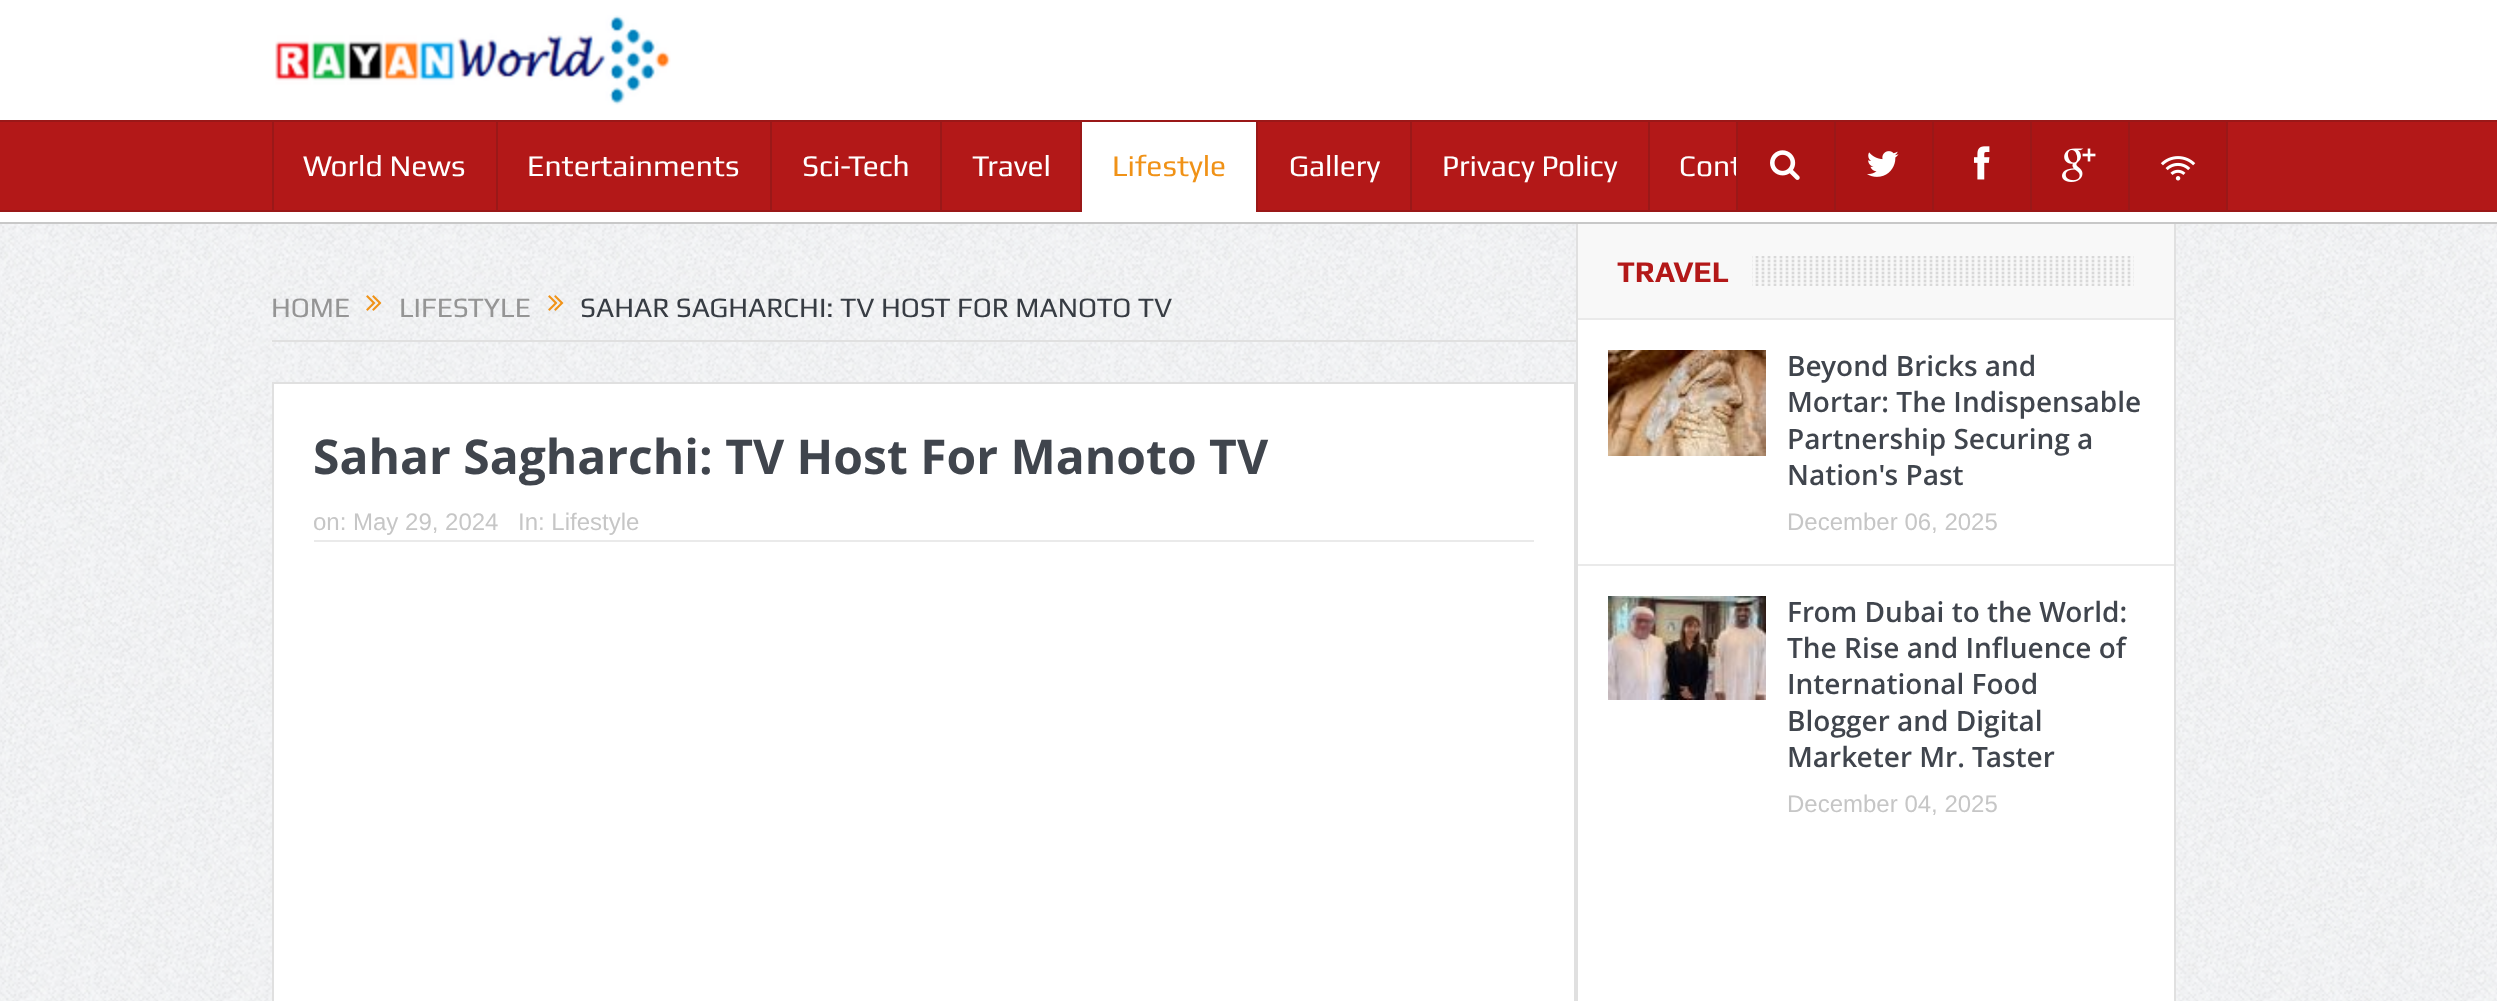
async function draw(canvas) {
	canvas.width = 2497;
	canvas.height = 1001;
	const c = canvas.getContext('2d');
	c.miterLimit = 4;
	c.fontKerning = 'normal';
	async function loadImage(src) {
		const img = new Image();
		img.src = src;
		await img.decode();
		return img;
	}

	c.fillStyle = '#fff';
	c.fillRect(0, 0, 2497, 1001);
	c.drawImage(await loadImage('img1.png'), 0, 224, 2497, 777);
	c.drawImage(await loadImage('img2.png'), 275, 15, 396, 90);
	for (const [x, y, w, h, color] of [
		[0, 120, 2497, 2, '#9a1818'],
		[0, 222, 2497, 2, '#c8c8c8'],
		[0, 122, 2497, 88, '#b31818'],
		[0, 210, 2497, 2, '#9a1818'],
		[272, 122, 2, 88, '#9a1818'],
	]) {
		c.fillStyle = color;
		c.fillRect(x, y, w, h);
	}
	c.font = '30px Play';
	c.fillStyle = '#fff';
	c.fillText('World News', 303, 176);
	c.fillStyle = '#9a1818';
	c.fillRect(496, 122, 2, 88);
	c.fillStyle = '#fff';
	c.fillText('Entertainments', 527, 176);
	c.fillStyle = '#9a1818';
	c.fillRect(770, 122, 2, 88);
	c.fillStyle = '#fff';
	c.fillText('Sci-Tech', 802, 176);
	c.fillStyle = '#9a1818';
	c.fillRect(940, 122, 2, 88);
	c.fillStyle = '#fff';
	c.fillText('Travel', 972, 176);
	c.fillStyle = '#9a1818';
	c.fillRect(1080, 122, 2, 88);
	c.fillStyle = '#fff';
	c.fillRect(1082, 122, 174, 90);
	c.fillStyle = '#f09217';
	c.fillText('Lifestyle', 1112, 176);
	c.fillStyle = '#9a1818';
	c.fillRect(1256, 122, 2, 88);
	c.fillStyle = '#fff';
	c.fillText('Gallery', 1289, 176);
	c.fillStyle = '#9a1818';
	c.fillRect(1410, 122, 2, 88);
	c.fillStyle = '#fff';
	c.fillText('Privacy Policy', 1442, 176);
	c.fillStyle = '#9a1818';
	c.fillRect(1648, 122, 2, 88);
	c.fillStyle = '#fff';
	c.fillText('Cont', 1679, 176);
	for (const [x, y, w, h, color] of [
		[1738, 122, 96, 88, '#ab1414'],
		[1834, 122, 2, 88, '#9a1818'],
		[1736, 122, 2, 88, '#9a1818'],
	]) {
		c.fillStyle = color;
		c.fillRect(x, y, w, h);
	}
	c.drawImage(await loadImage('img3.png'), 1770, 150, 30, 30);
	c.fillStyle = '#ab1414';
	c.fillRect(1836, 122, 96, 88);
	c.fillStyle = '#9a1818';
	c.fillRect(1932, 122, 2, 88);
	c.drawImage(await loadImage('img4.png'), 1867, 151, 32, 26);
	c.fillStyle = '#ab1414';
	c.fillRect(1934, 122, 96, 88);
	c.fillStyle = '#9a1818';
	c.fillRect(2030, 122, 2, 88);
	c.drawImage(await loadImage('img5.png'), 1974, 146, 16, 34);
	c.fillStyle = '#ab1414';
	c.fillRect(2032, 122, 96, 88);
	c.fillStyle = '#9a1818';
	c.fillRect(2128, 122, 2, 88);
	c.drawImage(await loadImage('img6.png'), 2062, 148, 34, 34);
	c.fillStyle = '#ab1414';
	c.fillRect(2130, 122, 96, 88);
	c.fillStyle = '#9a1818';
	c.fillRect(2226, 122, 2, 88);
	c.drawImage(await loadImage('img7.png'), 2160, 156, 36, 25);
	c.fillStyle = '#e0e0e0';
	c.fillRect(272, 340, 1304, 2);
	c.font = '28px Play';
	c.fillStyle = '#959595';
	c.fillText('HOME', 271, 317);
	c.drawImage(await loadImage('img8.png'), 366, 295, 16, 16);
	c.fillText('LIFESTYLE', 399, 317);
	c.drawImage(await loadImage('img9.png'), 548, 295, 16, 16);
	c.fillStyle = '#373c43';
	c.fillText('SAHAR SAGHARCHI: TV HOST FOR MANOTO TV', 580, 317);
	c.fillStyle = '#fff';
	c.beginPath();
	c.rect(273, 383, 1302, 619);
	c.fill();
	c.strokeStyle = '#e0e0e0';
	c.lineWidth = 2;
	c.stroke();
	c.font = 'bold 48px Open Sans';
	c.fillStyle = '#40454d';
	c.fillText('Sahar Sagharchi: TV Host For Manoto TV', 313, 474);
	c.fillStyle = '#eaeaea';
	c.fillRect(314, 540, 1220, 2);
	c.font = '24px Liberation Sans';
	c.fillStyle = '#c6c6c6';
	c.fillText('on: May 29, 2024', 313, 530);
	c.fillText('In: Lifestyle', 518, 530);
	for (const [x, y, w, h, color] of [
		[1578, 320, 596, 681, '#fff'],
		[2174, 224, 2, 777, '#e0e0e0'],
		[1576, 224, 2, 777, '#e0e0e0'],
		[1578, 224, 596, 94, '#f8f8f8'],
		[1578, 318, 596, 2, '#eaeaea'],
	]) {
		c.fillStyle = color;
		c.fillRect(x, y, w, h);
	}
	c.drawImage(await loadImage('img10.png'), 1752, 256, 382, 30);
	c.font = 'bold 30px Play';
	c.fillStyle = '#b31818';
	c.fillText('TRAVEL', 1617, 282);
	c.fillStyle = '#eaeaea';
	c.fillRect(1578, 564, 596, 2);
	c.drawImage(await loadImage('img11.png'), 1608, 350, 158, 106);
	c.font = '600 28px Open Sans';
	c.fillStyle = '#40454d';
	for (const [text, x, y] of [
		['Beyond Bricks and', 1787, 376],
		['Mortar: The Indispensable', 1787, 412],
		['Partnership Securing a', 1787, 449],
		['Nation\'s Past', 1787, 485],
	]) {
		c.fillText(text, x, y);
	}
	c.font = '24px Liberation Sans';
	c.fillStyle = '#c6c6c6';
	c.fillText('December 06, 2025', 1787, 530);
	c.drawImage(await loadImage('img12.png'), 1608, 596, 158, 104);
	c.font = '600 28px Open Sans';
	c.fillStyle = '#40454d';
	for (const [text, x, y] of [
		['From Dubai to the World:', 1787, 622],
		['The Rise and Influence of', 1787, 658],
		['International Food', 1787, 694],
		['Blogger and Digital', 1787, 731],
		['Marketer Mr. Taster', 1787, 767],
	]) {
		c.fillText(text, x, y);
	}
	c.font = '24px Liberation Sans';
	c.fillStyle = '#c6c6c6';
	c.fillText('December 04, 2025', 1787, 812);
}

draw(document.querySelector('canvas'));
